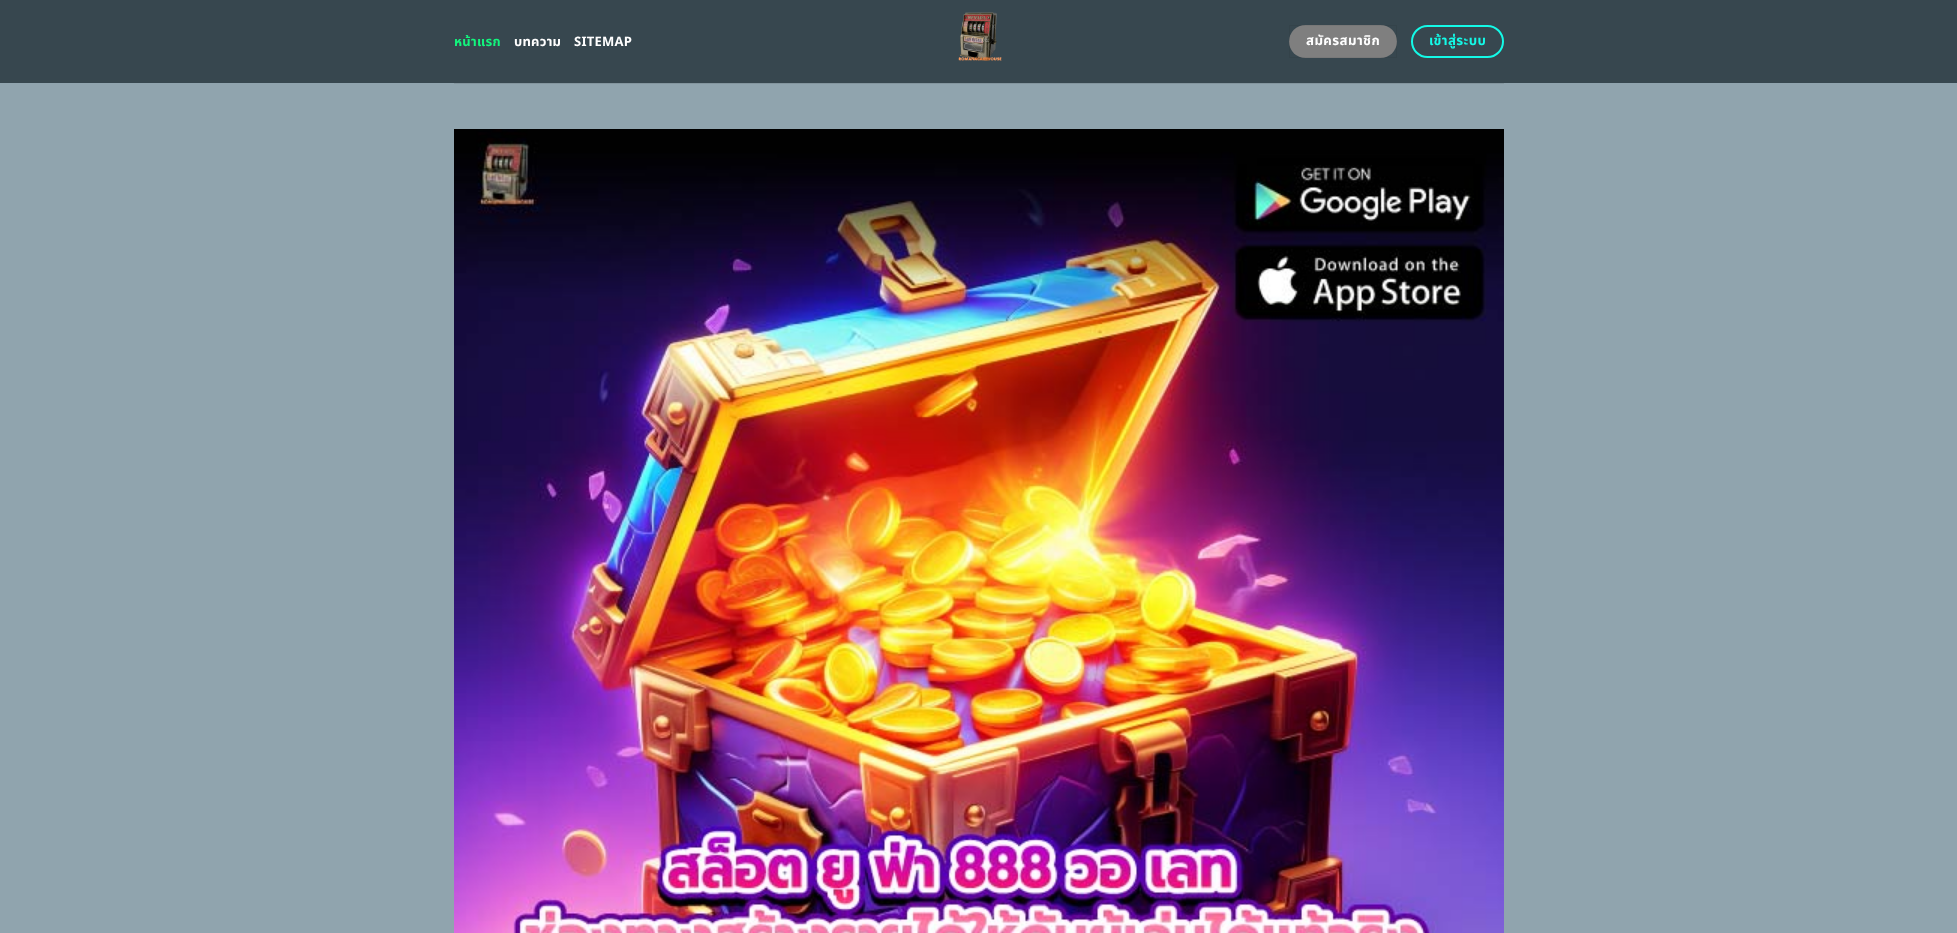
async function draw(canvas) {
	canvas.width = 1957;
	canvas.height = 933;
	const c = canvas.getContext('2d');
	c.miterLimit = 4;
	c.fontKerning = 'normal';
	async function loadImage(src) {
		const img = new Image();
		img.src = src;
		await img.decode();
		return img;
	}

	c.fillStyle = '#90a4ae';
	c.fillRect(0, 0, 1957, 933);
	c.fillStyle = '#37474f';
	c.fillRect(0, 0, 1957, 83);
	c.letterSpacing = '0.25px';
	c.font = 'bold 13px Noto Sans Thai';
	c.fillStyle = '#13f57d';
	c.fillText('หน้าแรก', 454, 46);
	c.fillStyle = '#fff';
	c.fillText('บทความ', 514, 46);
	c.fillText('SITEMAP', 574, 46);
	c.drawImage(await loadImage('img1.png'), 958, 12, 44, 49);
	c.fillStyle = '#7f7f7f';
	c.beginPath();
	c.roundRect(1289, 25, 108, 33, 16.5);
	c.fill();
	c.strokeStyle = '#0000000d';
	c.strokeRect(1289.5, 25.5, 107, 32);
	c.letterSpacing = '0.4px';
	c.font = 'bold 13.25px Noto Sans Thai';
	c.fillStyle = '#fff';
	c.fillText('สมัครสมาชิก', 1306, 45);
	c.beginPath();
	c.roundRect(1412, 26, 91, 31, 15.5);
	c.strokeStyle = '#14fae7';
	c.lineWidth = 2;
	c.stroke();
	c.fillStyle = '#14fae7';
	c.fillText('เข้าสู่ระบบ', 1429, 45);
	c.fillStyle = '#83959e';
	c.fillRect(454, 83, 1050, 1);
	c.drawImage(await loadImage('img2.png'), 454, 129, 1050, 804);
}

draw(document.querySelector('canvas'));
